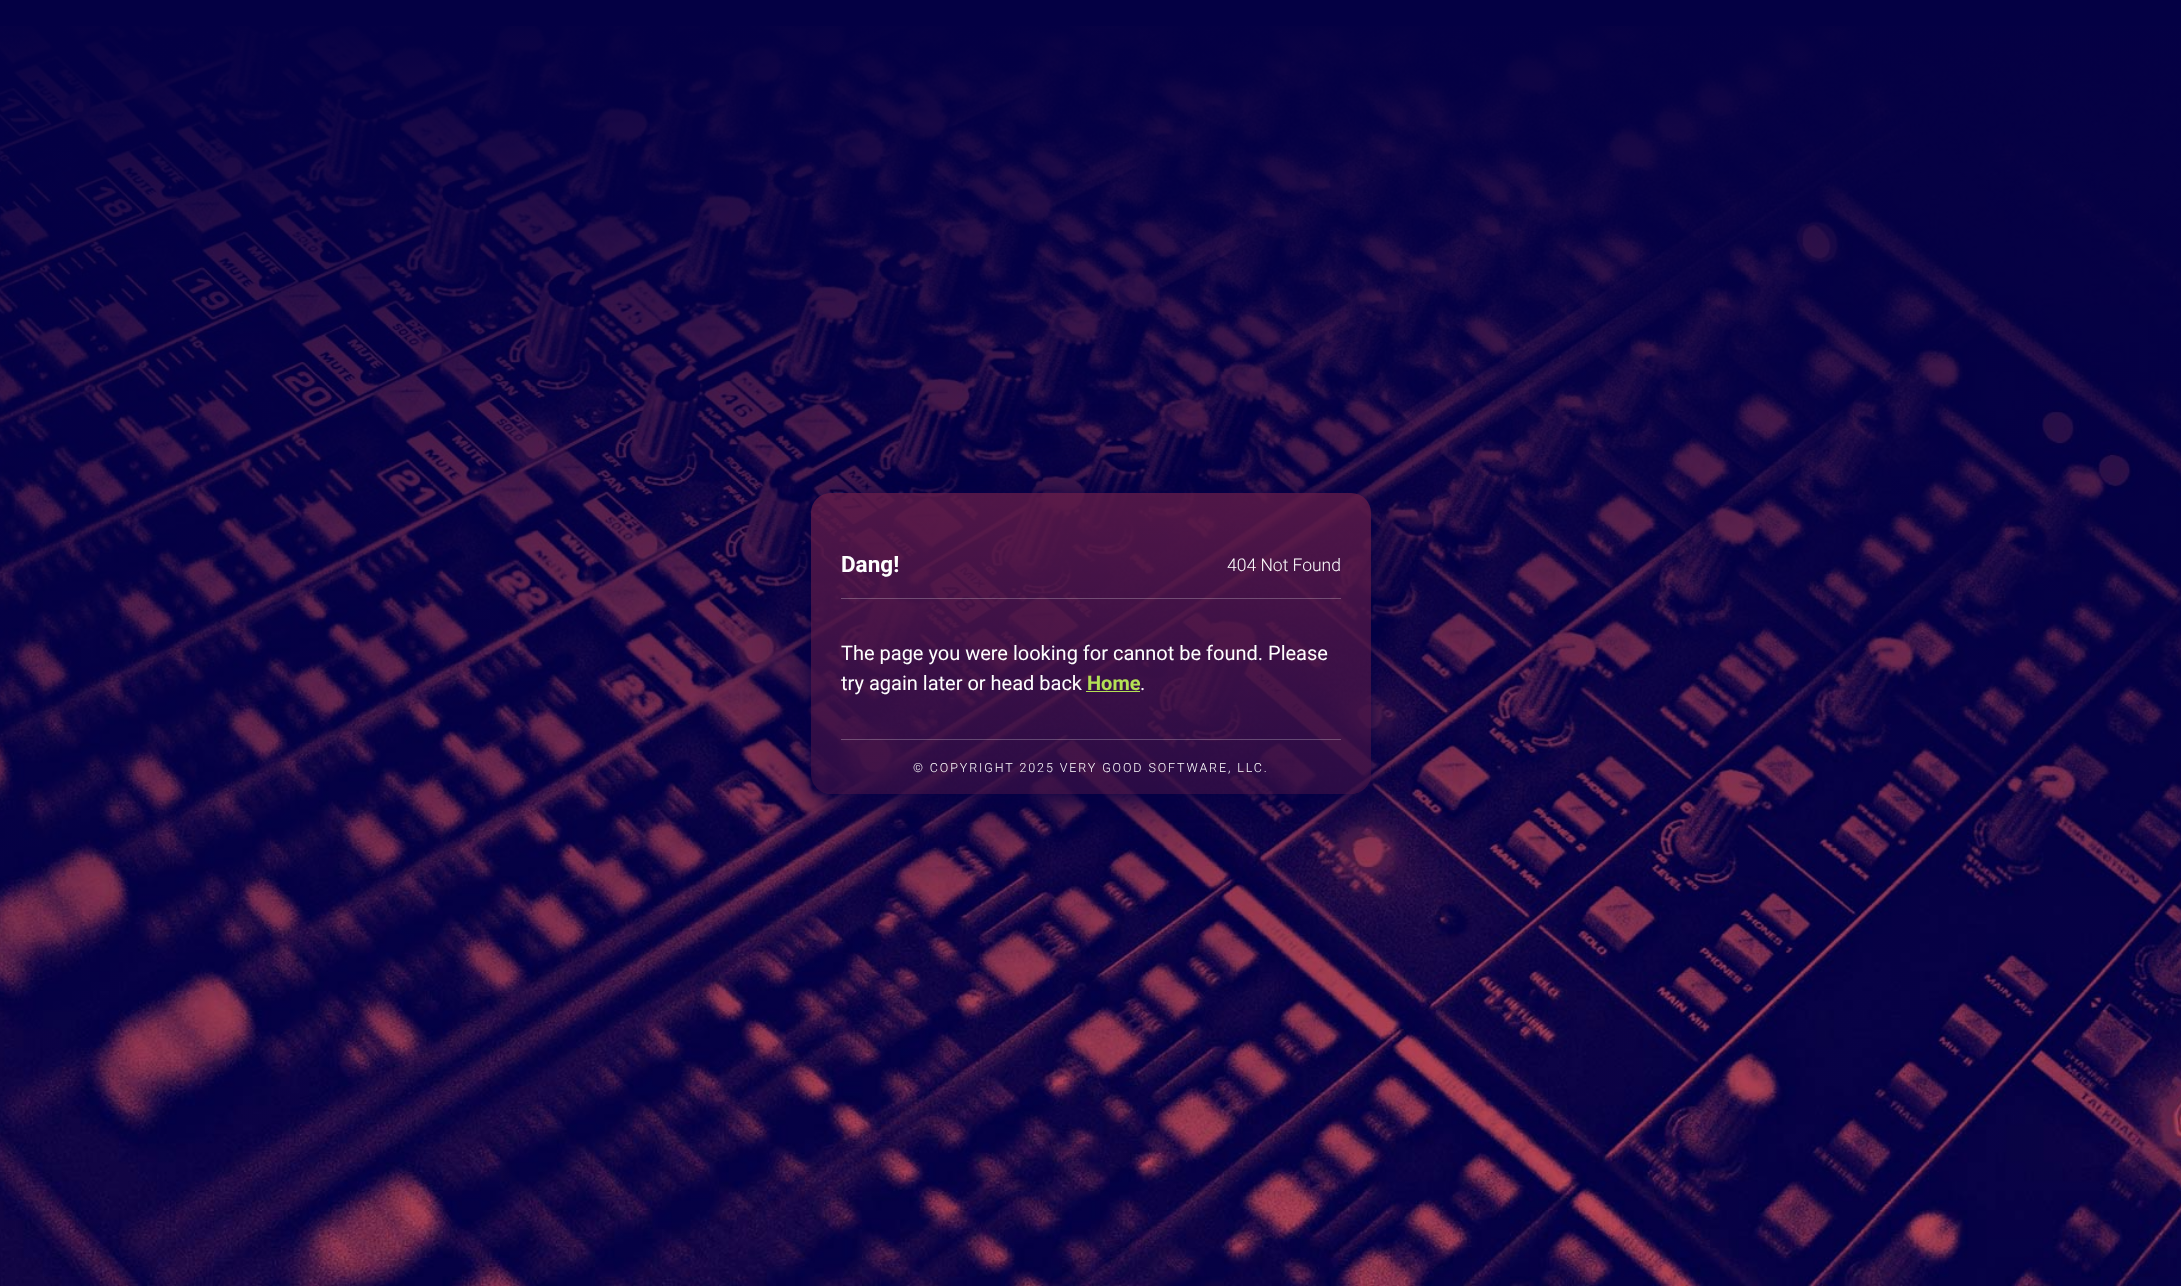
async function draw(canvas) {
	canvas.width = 2181;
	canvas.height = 1286;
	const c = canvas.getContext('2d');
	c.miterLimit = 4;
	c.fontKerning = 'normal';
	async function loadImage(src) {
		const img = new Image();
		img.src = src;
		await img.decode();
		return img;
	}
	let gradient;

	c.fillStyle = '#040044';
	c.fillRect(0, 0, 2181, 1286);
	c.drawImage(await loadImage('img1.png'), 0, 26, 2181, 1260);
	c.save();
	c.beginPath();
	c.moveTo(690, 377);
	c.lineTo(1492, 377);
	c.lineTo(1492, 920);
	c.lineTo(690, 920);
	c.closePath();
	c.moveTo(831, 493);
	c.lineTo(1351, 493);
	c.bezierCurveTo(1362, 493, 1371, 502, 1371, 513);
	c.lineTo(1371, 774);
	c.bezierCurveTo(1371, 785, 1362, 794, 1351, 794);
	c.lineTo(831, 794);
	c.bezierCurveTo(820, 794, 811, 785, 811, 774);
	c.lineTo(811, 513);
	c.bezierCurveTo(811, 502, 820, 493, 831, 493);
	c.closePath();
	c.clip('evenodd');
	c.fillStyle = '#040044cc';
	c.filter = 'blur(40px)';
	c.beginPath();
	c.roundRect(811, 498, 560, 301, 20);
	c.fill();
	c.filter = 'none';
	c.restore();
	c.save();
	c.beginPath();
	c.moveTo(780, 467);
	c.lineTo(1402, 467);
	c.lineTo(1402, 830);
	c.lineTo(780, 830);
	c.closePath();
	c.moveTo(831, 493);
	c.lineTo(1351, 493);
	c.bezierCurveTo(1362, 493, 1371, 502, 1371, 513);
	c.lineTo(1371, 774);
	c.bezierCurveTo(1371, 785, 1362, 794, 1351, 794);
	c.lineTo(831, 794);
	c.bezierCurveTo(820, 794, 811, 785, 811, 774);
	c.lineTo(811, 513);
	c.bezierCurveTo(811, 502, 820, 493, 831, 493);
	c.closePath();
	c.clip('evenodd');
	c.fillStyle = '#040044cc';
	c.filter = 'blur(10px)';
	c.beginPath();
	c.roundRect(811, 498, 560, 301, 20);
	c.fill();
	c.filter = 'none';
	c.restore();
	c.fillStyle = '#040044cc';
	c.beginPath();
	c.roundRect(811, 493, 560, 301, 20);
	c.fill();
	gradient = c.createLinearGradient(1091, 493, 1091, 794);
	gradient.addColorStop(0, '#ff49504d');
	gradient.addColorStop(1, '#ff495026');
	c.fillStyle = gradient;
	c.beginPath();
	c.roundRect(811, 493, 560, 301, 20);
	c.fill();
	c.fillStyle = '#ffffff40';
	c.fillRect(841, 598, 500, 1);
	c.font = 'bold 22.5px Roboto';
	c.fillStyle = '#fff';
	c.fillText('Dang!', 841, 572);
	c.font = '300 17.5px Roboto';
	c.fillText('404 Not Found', 1227, 571);
	c.font = '20px Roboto';
	c.fillText('The page you were looking for cannot be found. Please', 841, 660);
	c.fillText('try again later or head back', 841, 690);
	c.font = 'bold 20px Roboto';
	c.fillStyle = '#b4e155';
	c.fillText('Home', 1087, 690);
	c.fillRect(1086, 691, 54, 1);
	c.font = '20px Roboto';
	c.fillStyle = '#fff';
	c.fillText('.', 1140, 690);
	c.fillStyle = '#ffffff40';
	c.fillRect(841, 739, 500, 1);
	c.letterSpacing = '1.9px';
	c.font = '300 12.5px Roboto';
	c.fillStyle = '#fff';
	c.fillText('© COPYRIGHT 2025 VERY GOOD SOFTWARE, LLC.', 913, 772);
}

draw(document.querySelector('canvas'));
